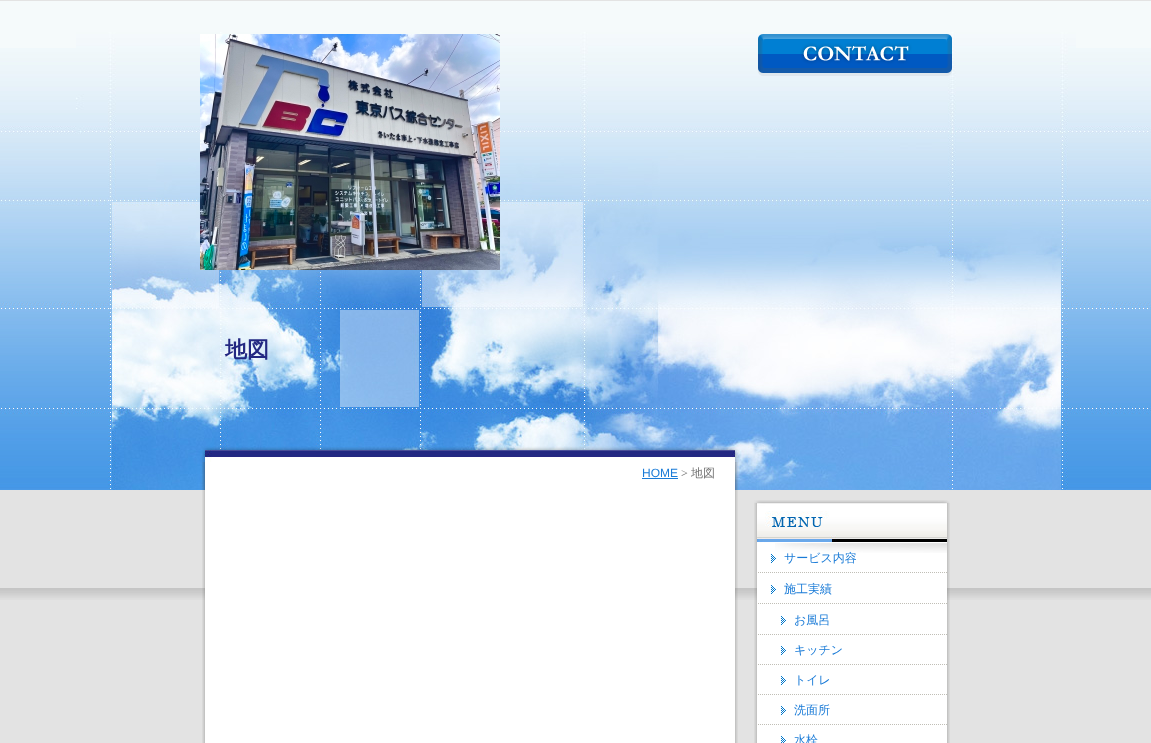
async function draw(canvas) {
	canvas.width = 1151;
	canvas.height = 743;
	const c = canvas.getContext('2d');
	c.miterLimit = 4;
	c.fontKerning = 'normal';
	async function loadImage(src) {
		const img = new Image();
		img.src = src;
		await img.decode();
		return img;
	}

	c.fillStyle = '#e3e3e3';
	c.fillRect(0, 0, 1151, 743);
	c.fillStyle = '#f5fafb';
	c.fillRect(0, 1, 1151, 47);
	c.drawImage(await loadImage('img1.png'), 0, 48, 1151, 402);
	c.drawImage(await loadImage('img2.png'), 76, 32, 1000, 418);
	c.drawImage(await loadImage('img3.png'), 200, 34, 300, 236);
	c.drawImage(await loadImage('img4.png'), 758, 34, 194, 42);
	c.font = 'bold 22px WenQuanYi Zen Hei';
	c.fillStyle = '#232882';
	c.fillText('地図', 225, 357);
	c.drawImage(await loadImage('img5.png'), 0, 450, 1151, 150);
	c.drawImage(await loadImage('img6.png'), 108, 450, 960, 40);
	c.drawImage(await loadImage('img7.png'), 202, 462, 536, 281);
	c.font = '12px Liberation Sans';
	c.fillStyle = '#1a7bd7';
	c.fillText('HOME', 642, 477);
	c.fillRect(642, 478, 36, 1);
	c.font = '12px Liberation Serif';
	c.fillStyle = '#6f6f6f';
	c.fillText('>', 681, 477);
	c.font = '500 12px WenQuanYi Zen Hei';
	c.fillText('地図', 691, 477);
	c.drawImage(await loadImage('img8.png'), 754, 503, 196, 240);
	c.drawImage(await loadImage('img9.png'), 754, 500, 196, 3);
	c.drawImage(await loadImage('img10.png'), 757, 503, 190, 40);
	c.drawImage(await loadImage('img11.png'), 775, 543, 172, 10);
	c.drawImage(await loadImage('img12.png'), 758, 572, 189, 1);
	c.drawImage(await loadImage('img13.png'), 771, 554, 5, 9);
	c.fillStyle = '#1a7bd7';
	c.fillText('サービス内容', 784, 562);
	c.drawImage(await loadImage('img12.png'), 758, 603, 189, 1);
	c.drawImage(await loadImage('img13.png'), 771, 585, 5, 9);
	c.fillText('施工実績', 784, 593);
	c.drawImage(await loadImage('img12.png'), 758, 634, 189, 1);
	c.drawImage(await loadImage('img13.png'), 781, 616, 5, 9);
	c.fillText('お風呂', 794, 624);
	c.drawImage(await loadImage('img12.png'), 758, 664, 189, 1);
	c.drawImage(await loadImage('img13.png'), 781, 646, 5, 9);
	c.fillText('キッチン', 794, 654);
	c.drawImage(await loadImage('img12.png'), 758, 694, 189, 1);
	c.drawImage(await loadImage('img13.png'), 781, 676, 5, 9);
	c.fillText('トイレ', 794, 684);
	c.drawImage(await loadImage('img12.png'), 758, 724, 189, 1);
	c.drawImage(await loadImage('img13.png'), 781, 706, 5, 9);
	c.fillText('洗面所', 794, 714);
	c.drawImage(await loadImage('img14.png'), 781, 736, 5, 7);
	c.fillText('水栓', 794, 744);
}

draw(document.querySelector('canvas'));
